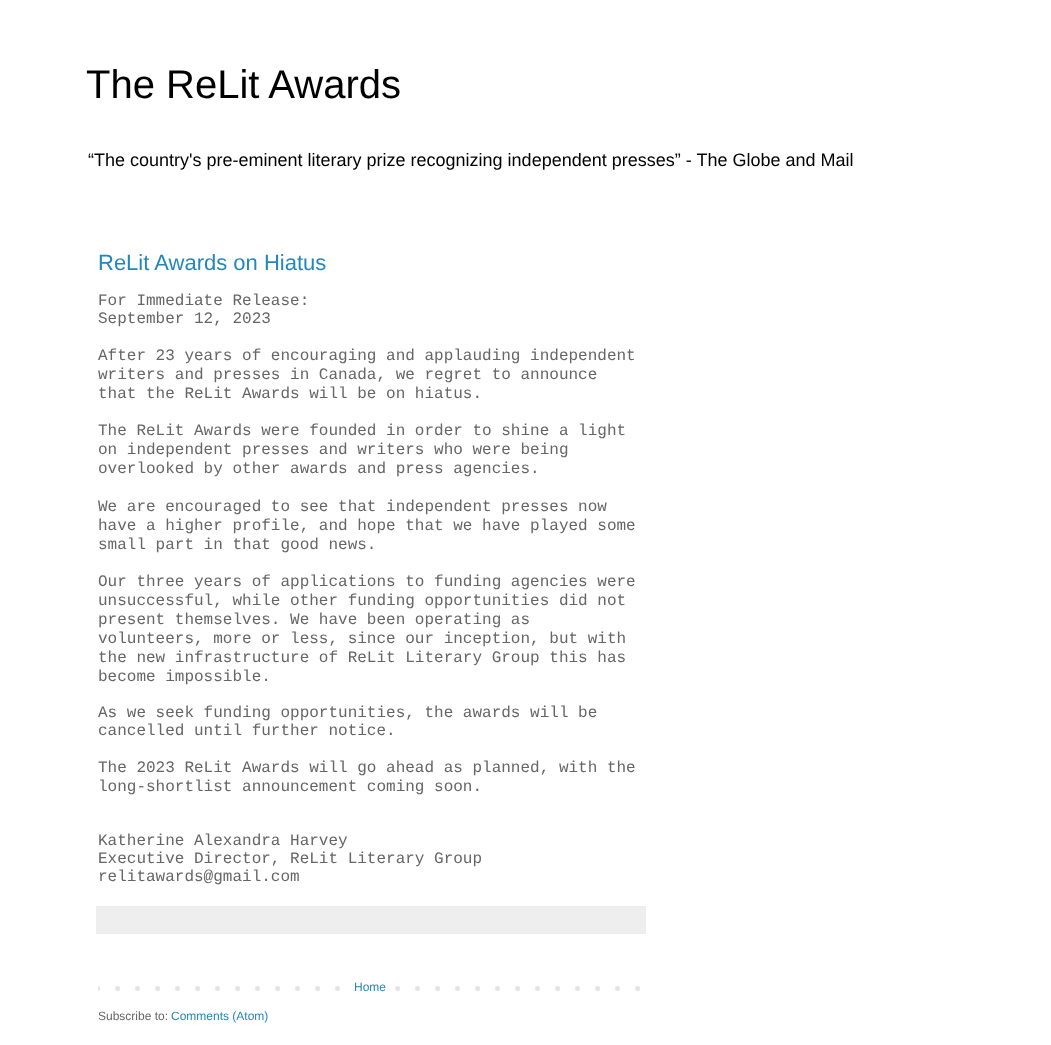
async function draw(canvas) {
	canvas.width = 1051;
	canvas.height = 1045;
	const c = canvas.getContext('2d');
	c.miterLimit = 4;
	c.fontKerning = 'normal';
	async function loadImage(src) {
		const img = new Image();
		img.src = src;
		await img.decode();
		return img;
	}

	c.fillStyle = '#fff';
	c.fillRect(0, 0, 1051, 1045);
	c.font = '40px Liberation Sans';
	c.fillStyle = '#000';
	c.fillText('The ReLit Awards', 86, 98);
	c.font = '18px Liberation Sans';
	c.fillText('“The country\'s pre-eminent literary prize recognizing independent presses” - The Globe and Mail', 88, 166);
	c.font = '22px Liberation Sans';
	c.fillStyle = '#28b';
	c.fillText('ReLit Awards on Hiatus', 98, 270);
	c.font = '16px Liberation Mono';
	c.fillStyle = '#666';
	for (const [text, x, y] of [
		['For Immediate Release:', 98, 305],
		['September 12, 2023', 98, 323],
		['After 23 years of encouraging and applauding independent', 98, 360],
		['writers and presses in Canada, we regret to announce', 98, 379],
		['that the ReLit Awards will be on hiatus.', 98, 398],
		['The ReLit Awards were founded in order to shine a light', 98, 435],
		['on independent presses and writers who were being', 98, 454],
		['overlooked by other awards and press agencies.', 98, 473],
		['We are encouraged to see that independent presses now', 98, 511],
		['have a higher profile, and hope that we have played some', 98, 530],
		['small part in that good news.', 98, 549],
		['Our three years of applications to funding agencies were', 98, 586],
		['unsuccessful, while other funding opportunities did not', 98, 605],
		['present themselves. We have been operating as', 98, 624],
		['volunteers, more or less, since our inception, but with', 98, 643],
		['the new infrastructure of ReLit Literary Group this has', 98, 662],
		['become impossible.', 98, 681],
		['As we seek funding opportunities, the awards will be', 98, 717],
		['cancelled until further notice.', 98, 735],
		['The 2023 ReLit Awards will go ahead as planned, with the', 98, 772],
		['long-shortlist announcement coming soon.', 98, 791],
		['Katherine Alexandra Harvey', 98, 845],
		['Executive Director, ReLit Literary Group', 98, 863],
		['relitawards@gmail.com', 98, 881],
	]) {
		c.fillText(text, x, y);
	}
	c.fillStyle = '#eee';
	c.fillRect(96, 906, 550, 28);
	c.drawImage(await loadImage('img1.png'), 98, 986, 542, 5);
	c.fillStyle = '#fff';
	c.fillRect(355, 986, 26, 5);
	c.font = '12px Liberation Sans';
	c.fillStyle = '#28b';
	c.fillText('Home', 354, 991);
	c.fillStyle = '#666';
	c.fillText('Subscribe to:', 98, 1020);
	c.fillStyle = '#28b';
	c.fillText('Comments (Atom)', 171, 1020);
}

draw(document.querySelector('canvas'));
